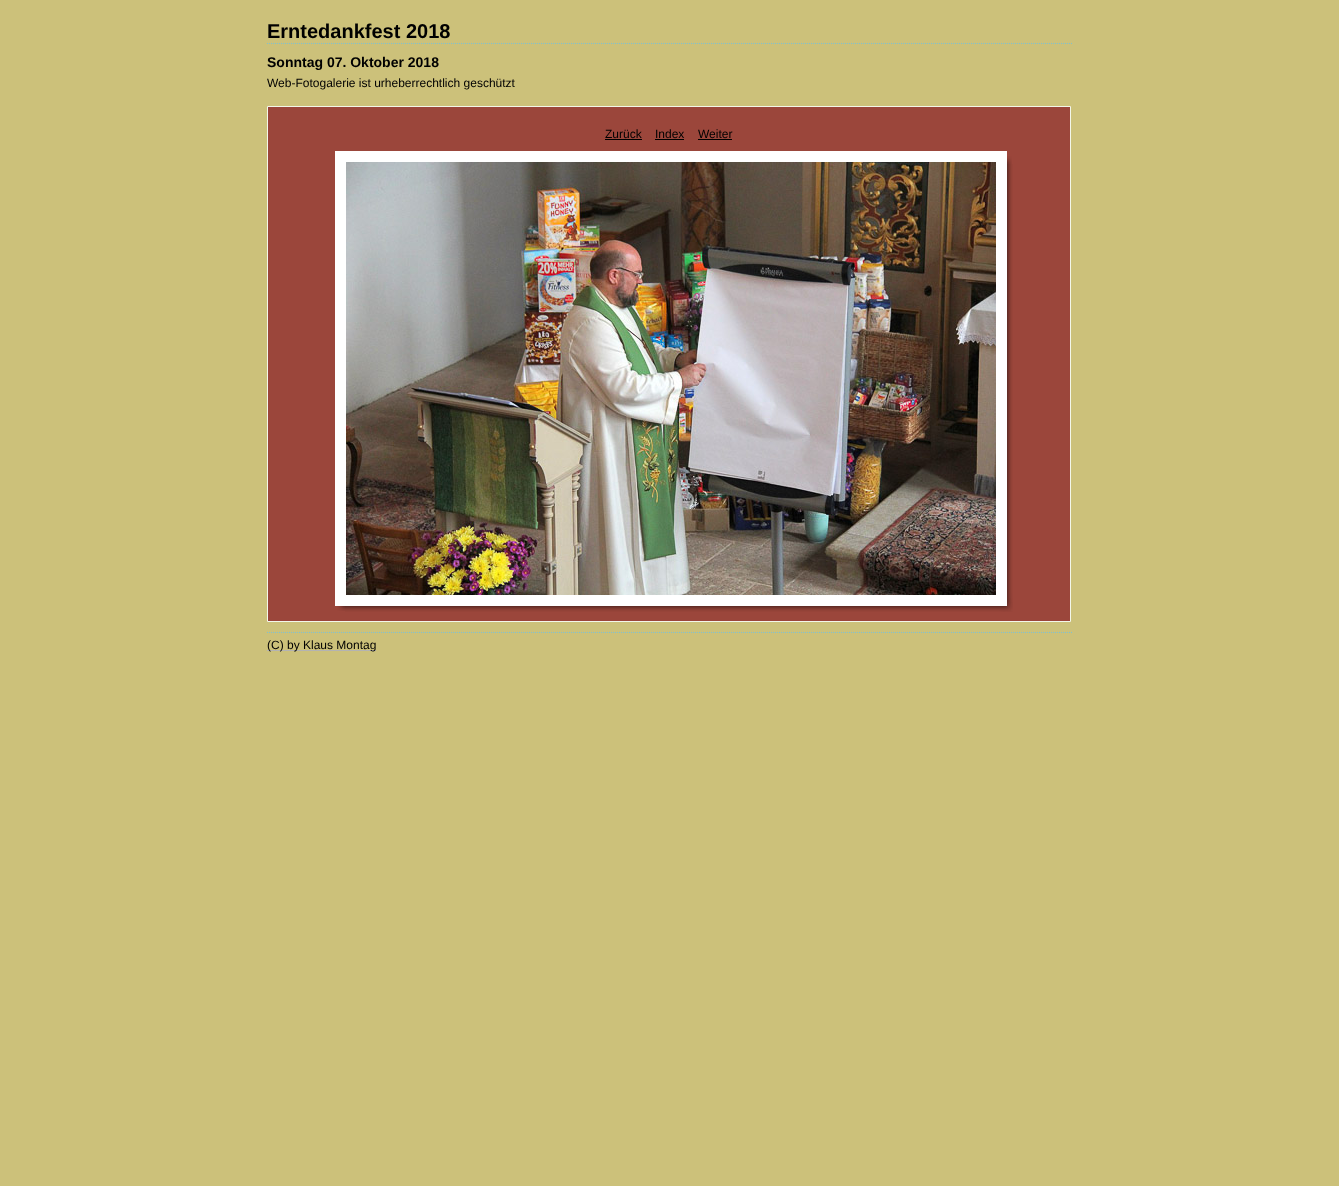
async function draw(canvas) {
	canvas.width = 1339;
	canvas.height = 1186;
	const c = canvas.getContext('2d');
	c.miterLimit = 4;
	c.fontKerning = 'normal';
	async function loadImage(src) {
		const img = new Image();
		img.src = src;
		await img.decode();
		return img;
	}

	c.fillStyle = '#ccc17a';
	c.fillRect(0, 0, 1339, 1186);
	c.beginPath();
	c.moveTo(267, 43.5);
	c.lineTo(1073, 43.5);
	c.strokeStyle = '#7ec1d0';
	c.setLineDash([1, 1]);
	c.stroke();
	c.font = 'bold 20px Liberation Sans';
	c.fillStyle = '#000';
	c.fillText('Erntedankfest 2018', 267, 38);
	c.font = 'bold 14px Liberation Sans';
	c.fillText('Sonntag 07. Oktober 2018', 267, 67);
	c.font = '12px Liberation Sans';
	c.fillText('Web-Fotogalerie ist urheberrechtlich geschützt', 267, 87);
	c.beginPath();
	c.moveTo(267, 632.5);
	c.lineTo(1073, 632.5);
	c.stroke();
	c.fillStyle = '#9b463b';
	c.beginPath();
	c.rect(267.5, 106.5, 803, 515);
	c.fill();
	c.strokeStyle = '#f2f7ea';
	c.setLineDash([]);
	c.stroke();
	c.fillStyle = '#000';
	c.fillText('Zurück', 605, 138);
	c.fillRect(605, 139, 37, 1);
	c.fillText('Index', 655, 138);
	c.fillRect(655, 139, 29, 1);
	c.fillText('Weiter', 698, 138);
	c.fillRect(698, 139, 34, 1);
	c.drawImage(await loadImage('img1.png'), 345, 164, 668, 448);
	c.strokeStyle = '#fff';
	c.lineWidth = 11;
	c.strokeRect(340.5, 156.5, 661, 444);
	c.drawImage(await loadImage('img2.png'), 346, 162, 650, 433);
	c.drawImage(await loadImage('img3.png'), 1007, 156, 5, 8);
	c.drawImage(await loadImage('img4.png'), 337, 606, 8, 5);
	c.fillStyle = '#b3b3b3';
	c.fillRect(267, 650, 109, 1);
	c.fillStyle = '#000';
	c.fillText('(C) by Klaus Montag', 267, 649);
}

draw(document.querySelector('canvas'));
